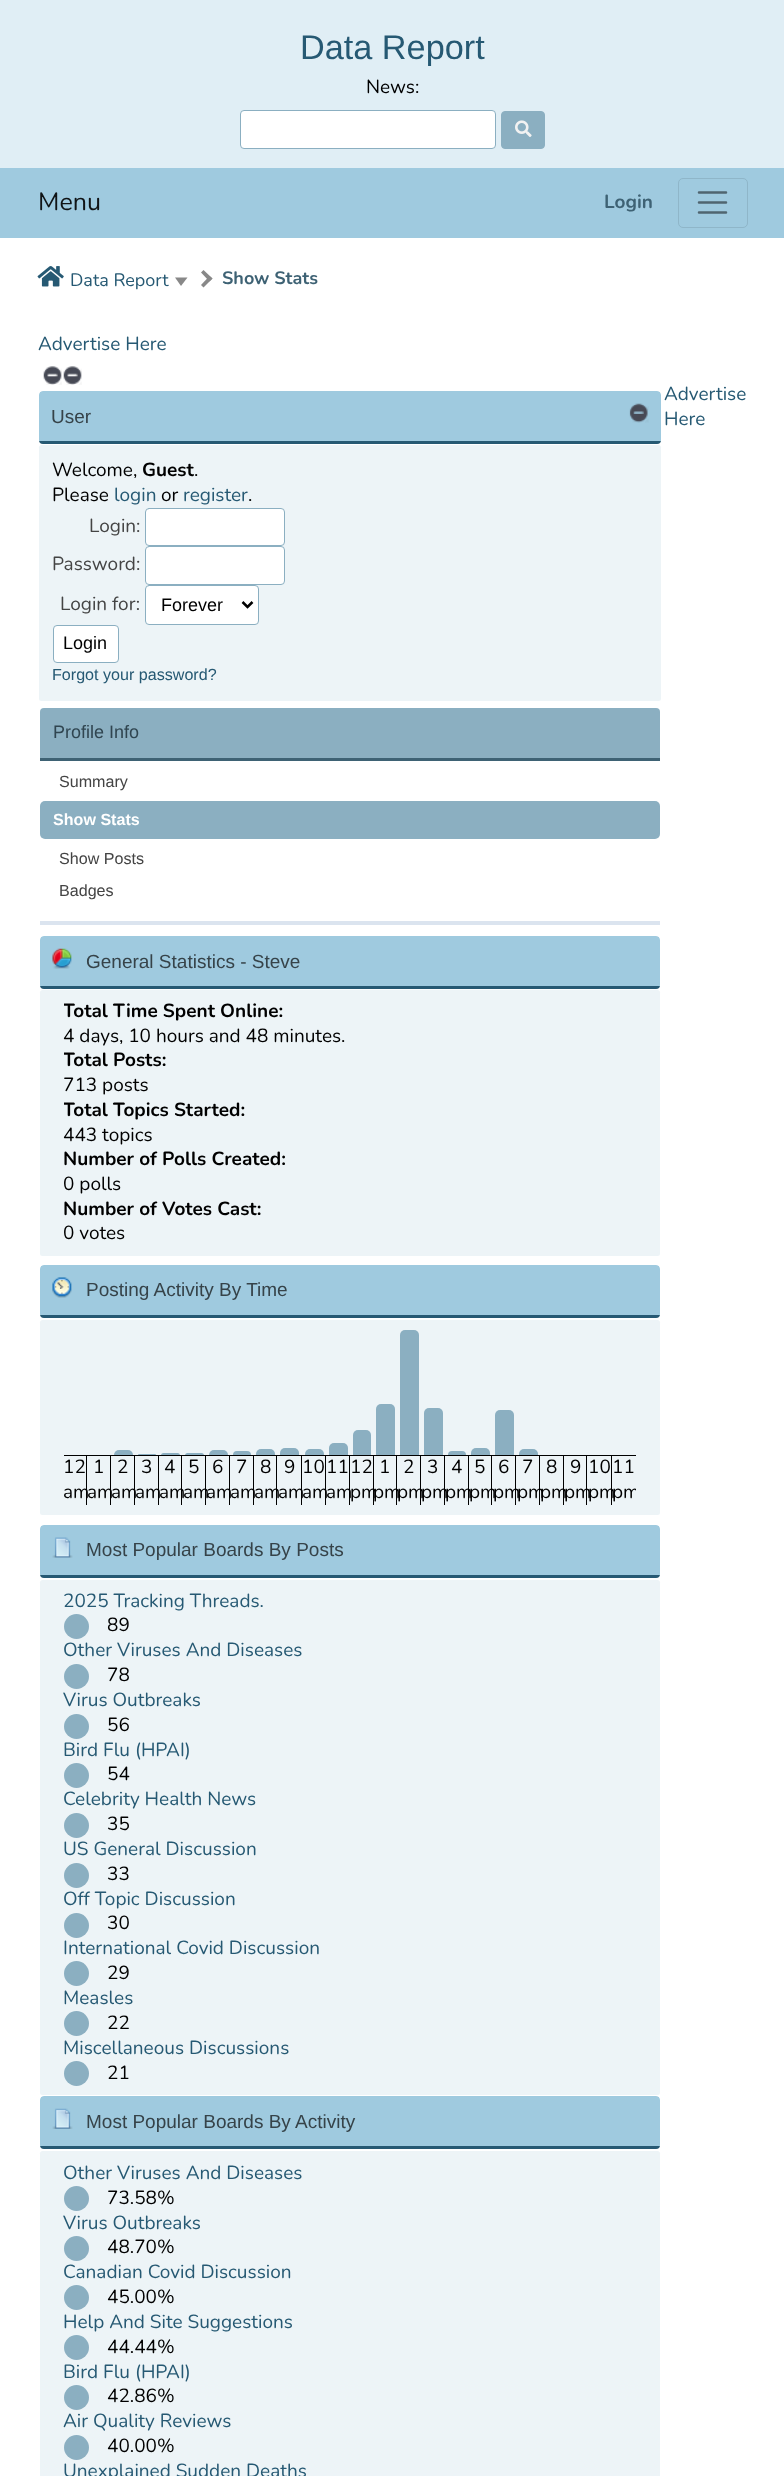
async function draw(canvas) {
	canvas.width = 784;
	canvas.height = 2476;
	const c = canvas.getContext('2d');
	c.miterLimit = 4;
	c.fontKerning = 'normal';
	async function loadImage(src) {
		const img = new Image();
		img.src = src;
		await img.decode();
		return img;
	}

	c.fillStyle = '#e0eef5';
	c.fillRect(0, 0, 784, 2476);
	c.font = '34.25px Liberation Sans';
	c.fillStyle = '#265973';
	c.fillText('Data Report', 300, 59);
	c.font = '19px Nunito';
	c.fillStyle = '#000';
	c.fillText('News:', 366, 93);
	c.fillStyle = '#fff';
	c.beginPath();
	c.roundRect(240.5, 110.5, 255, 38, 3.5);
	c.fill();
	c.strokeStyle = '#8bafc1';
	c.stroke();
	c.fillStyle = '#8bafc1';
	c.beginPath();
	c.roundRect(501.5, 111.5, 43, 37, 3.5);
	c.fill();
	c.stroke();
	c.drawImage(await loadImage('img1.png'), 515, 120, 17, 17);
	c.fillStyle = '#9fcadf';
	c.fillRect(0, 168, 784, 70);
	c.font = '25px Nunito';
	c.fillStyle = '#101416';
	c.fillText('Menu', 38, 210);
	c.font = 'bold 19px Nunito';
	c.fillStyle = '#3e6274';
	c.fillText('Login', 604, 208);
	c.beginPath();
	c.roundRect(678.5, 178.5, 69, 49, 4.5);
	c.strokeStyle = '#8fb6c9';
	c.stroke();
	c.beginPath();
	c.moveTo(699, 192.5);
	c.lineTo(726, 192.5);
	c.moveTo(699, 202.5);
	c.lineTo(726, 202.5);
	c.moveTo(699, 212.5);
	c.lineTo(726, 212.5);
	c.strokeStyle = '#506570';
	c.lineWidth = 2.5;
	c.lineCap = 'round';
	c.stroke();
	c.fillStyle = '#fff';
	c.fillRect(0, 238, 784, 2238);
	c.drawImage(await loadImage('img2.png'), 37, 266, 27, 21);
	c.font = '18px Nunito';
	c.fillStyle = '#265973';
	c.fillText('Data Report', 70, 286);
	c.fillStyle = '#888';
	c.beginPath();
	c.moveTo(175, 277.5);
	c.lineTo(187.5, 277.5);
	c.lineTo(181, 286);
	c.closePath();
	c.fill();
	c.beginPath();
	c.moveTo(201, 272.5);
	c.lineTo(203.5, 270);
	c.lineTo(212.5, 278.5);
	c.lineTo(209.5, 281.5);
	c.closePath();
	c.fill();
	c.beginPath();
	c.moveTo(201, 285);
	c.lineTo(209.5, 276);
	c.lineTo(212.5, 278.5);
	c.lineTo(203.5, 287.5);
	c.closePath();
	c.fill();
	c.font = 'bold 18px Nunito';
	c.fillStyle = '#3e6274';
	c.fillText('Show Stats', 222, 284);
	c.font = '19px Nunito';
	c.fillStyle = '#265973';
	c.fillText('Advertise Here', 38, 350);
	c.drawImage(await loadImage('img3.png'), 43, 366, 19, 19);
	c.drawImage(await loadImage('img3.png'), 63, 366, 19, 19);
	c.save();
	c.beginPath();
	c.roundRect(39, 391, 622, 53, 4);
	c.clip();
	c.fillStyle = '#9fcadf';
	c.beginPath();
	c.roundRect(39, 391, 622, 50, [4, 4, 0, 0]);
	c.fill();
	c.fillStyle = '#265973';
	c.fillRect(39, 441, 622, 3);
	c.restore();
	c.font = '19px Liberation Sans';
	c.fillStyle = '#364349';
	c.fillText('User', 51, 423);
	c.drawImage(await loadImage('img4.png'), 629, 403, 20, 20);
	c.fillStyle = '#edf4f7';
	c.beginPath();
	c.roundRect(39, 445, 622, 256, 2.5);
	c.fill();
	c.font = '19px Nunito';
	c.fillStyle = '#000';
	c.fillText('Welcome,', 52, 476);
	c.font = 'bold 19px Nunito';
	c.fillText('Guest', 142, 476);
	c.font = '19px Nunito';
	c.fillText('.', 194, 476);
	c.fillText('Please', 52, 501);
	c.fillStyle = '#265973';
	c.fillText('login', 114, 501);
	c.fillStyle = '#000';
	c.fillText('or', 161, 501);
	c.fillStyle = '#265973';
	c.fillText('register', 183, 501);
	c.fillStyle = '#000';
	c.fillText('.', 248, 501);
	c.fillStyle = '#444';
	c.fillText('Login:', 89, 532);
	c.fillStyle = '#fff';
	c.beginPath();
	c.roundRect(145.5, 508.5, 139, 37, 3.5);
	c.fill();
	c.strokeStyle = '#8bafc1';
	c.lineWidth = 1;
	c.stroke();
	c.fillStyle = '#444';
	c.fillText('Password:', 52, 570);
	c.fillStyle = '#fff';
	c.beginPath();
	c.roundRect(145.5, 546.5, 139, 38, 3.5);
	c.fill();
	c.stroke();
	c.fillStyle = '#444';
	c.fillText('Login for:', 60, 610);
	c.fillStyle = '#fff';
	c.beginPath();
	c.roundRect(145.5, 585.5, 113, 39, 3.5);
	c.fill();
	c.stroke();
	c.beginPath();
	c.moveTo(242.5, 602);
	c.lineTo(247.5, 607);
	c.lineTo(252.5, 602);
	c.strokeStyle = '#000';
	c.lineWidth = 2.5;
	c.lineCap = 'butt';
	c.stroke();
	c.font = '18px Liberation Sans';
	c.fillStyle = '#000';
	c.fillText('Forever', 161, 611);
	c.fillStyle = '#fff';
	c.beginPath();
	c.roundRect(53.5, 625.5, 65, 37, 3.5);
	c.fill();
	c.strokeStyle = '#8bafc1';
	c.lineWidth = 1;
	c.stroke();
	c.fillStyle = '#000';
	c.fillText('Login', 63, 649);
	c.font = '16.1px Liberation Sans';
	c.fillStyle = '#265973';
	c.fillText('Forgot your password?', 52, 680);
	c.fillStyle = '#dbe4ef';
	c.fillRect(40, 921, 620, 4);
	c.fillStyle = '#8bafc1';
	c.beginPath();
	c.roundRect(40, 708, 620, 50, [4, 4, 0, 0]);
	c.fill();
	c.fillStyle = '#3e6274';
	c.fillRect(40, 758, 620, 3);
	c.font = '18px Liberation Sans';
	c.fillStyle = '#304550';
	c.fillText('Profile Info', 53, 738);
	c.font = '16.1px Liberation Sans';
	c.fillStyle = '#444';
	c.fillText('Summary', 59, 787);
	c.fillStyle = '#8bafc1';
	c.beginPath();
	c.roundRect(40, 801, 620, 38, 5);
	c.fill();
	c.font = 'bold 16.1px Liberation Sans';
	c.fillStyle = '#fff';
	c.fillText('Show Stats', 53, 825);
	c.font = '16.1px Liberation Sans';
	c.fillStyle = '#444';
	c.fillText('Show Posts', 59, 864);
	c.fillText('Badges', 59, 896);
	c.save();
	c.beginPath();
	c.roundRect(40, 936, 620, 53, 4);
	c.clip();
	c.fillStyle = '#9fcadf';
	c.beginPath();
	c.roundRect(40, 936, 620, 50, [4, 4, 0, 0]);
	c.fill();
	c.fillStyle = '#265973';
	c.fillRect(40, 986, 620, 3);
	c.restore();
	c.drawImage(await loadImage('img5.png'), 52, 948, 20, 21);
	c.font = '19px Liberation Sans';
	c.fillStyle = '#364349';
	c.fillText('General Statistics - Steve', 86, 968);
	c.fillStyle = '#edf4f7';
	c.beginPath();
	c.roundRect(40, 990, 620, 266, 2.5);
	c.fill();
	c.save();
	c.beginPath();
	c.rect(64, 1000, 572, 24);
	c.clip();
	c.font = 'bold 19px Nunito';
	c.fillStyle = '#000';
	c.fillText('Total Time Spent Online:', 63, 1017);
	c.restore();
	c.font = '19px Nunito';
	c.fillStyle = '#000';
	c.fillText('4 days, 10 hours and 48 minutes.', 63, 1042);
	c.save();
	c.beginPath();
	c.rect(64, 1049, 572, 25);
	c.clip();
	c.font = 'bold 19px Nunito';
	c.fillText('Total Posts:', 63, 1066);
	c.restore();
	c.fillText('713 posts', 63, 1091);
	c.save();
	c.beginPath();
	c.rect(64, 1099, 572, 24);
	c.clip();
	c.font = 'bold 19px Nunito';
	c.fillText('Total Topics Started:', 63, 1116);
	c.restore();
	c.fillText('443 topics', 63, 1141);
	c.font = 'bold 19px Nunito';
	c.fillText('Number of Polls Created:', 63, 1165);
	c.font = '19px Nunito';
	c.fillText('0 polls', 63, 1190);
	c.font = 'bold 19px Nunito';
	c.fillText('Number of Votes Cast:', 63, 1215);
	c.font = '19px Nunito';
	c.fillText('0 votes', 63, 1239);
	c.save();
	c.beginPath();
	c.roundRect(40, 1265, 620, 53, 4);
	c.clip();
	c.fillStyle = '#9fcadf';
	c.beginPath();
	c.roundRect(40, 1265, 620, 50, [4, 4, 0, 0]);
	c.fill();
	c.fillStyle = '#265973';
	c.fillRect(40, 1315, 620, 3);
	c.restore();
	c.drawImage(await loadImage('img6.png'), 52, 1277, 20, 21);
	c.font = '19px Liberation Sans';
	c.fillStyle = '#364349';
	c.fillText('Posting Activity By Time', 86, 1296);
	c.fillStyle = '#edf4f7';
	c.beginPath();
	c.roundRect(40, 1320, 620, 195, 2.5);
	c.fill();
	c.fillStyle = '#000';
	c.fillRect(64, 1455, 95, 1);
	c.fillRect(86, 1455, 1, 50);
	c.font = '19px Nunito';
	c.fillText('12', 63, 1473);
	c.fillText('am', 63, 1498);
	c.fillRect(110, 1455, 1, 50);
	c.fillText('1', 93, 1473);
	c.fillText('am', 87, 1498);
	c.fillStyle = '#8bafc1';
	c.beginPath();
	c.roundRect(114, 1450, 19, 5, [5, 5, 0, 0]);
	c.fill();
	c.fillStyle = '#000';
	c.fillRect(134, 1455, 1, 50);
	c.fillText('2', 117, 1473);
	c.fillText('am', 111, 1498);
	c.fillStyle = '#8bafc1';
	c.beginPath();
	c.roundRect(138, 1454, 18, 1, [1, 1, 0, 0]);
	c.fill();
	c.fillStyle = '#000';
	c.fillRect(158, 1455, 1, 50);
	c.fillText('3', 141, 1473);
	c.fillText('am', 135, 1498);
	c.fillStyle = '#8bafc1';
	c.beginPath();
	c.roundRect(161, 1453, 19, 3, [2.5, 2.5, 0, 0]);
	c.fill();
	c.fillStyle = '#000';
	c.fillRect(159, 1455, 24, 1);
	c.fillRect(181, 1455, 1, 50);
	c.fillText('4', 164, 1473);
	c.fillText('am', 159, 1498);
	c.fillStyle = '#8bafc1';
	c.beginPath();
	c.roundRect(185, 1453, 19, 3, [2.5, 2.5, 0, 0]);
	c.fill();
	c.fillStyle = '#000';
	c.fillRect(183, 1455, 453, 1);
	c.fillRect(205, 1455, 1, 50);
	c.fillText('5', 188, 1473);
	c.fillText('am', 183, 1498);
	c.fillStyle = '#8bafc1';
	c.beginPath();
	c.roundRect(209, 1450, 19, 5, [5, 5, 0, 0]);
	c.fill();
	c.fillStyle = '#000';
	c.fillRect(229, 1455, 1, 50);
	c.fillText('6', 212, 1473);
	c.fillText('am', 206, 1498);
	c.fillStyle = '#8bafc1';
	c.beginPath();
	c.roundRect(233, 1451, 18, 4, [4, 4, 0, 0]);
	c.fill();
	c.fillStyle = '#000';
	c.fillRect(253, 1455, 1, 50);
	c.fillText('7', 236, 1473);
	c.fillText('am', 230, 1498);
	c.fillStyle = '#8bafc1';
	c.beginPath();
	c.roundRect(256, 1449, 19, 6, [5, 5, 0, 0]);
	c.fill();
	c.fillStyle = '#000';
	c.fillRect(276, 1455, 1, 50);
	c.fillText('8', 260, 1473);
	c.fillText('am', 254, 1498);
	c.fillStyle = '#8bafc1';
	c.beginPath();
	c.roundRect(280, 1448, 19, 7, [5, 5, 0, 0]);
	c.fill();
	c.fillStyle = '#000';
	c.fillRect(301, 1455, 1, 50);
	c.fillText('9', 284, 1473);
	c.fillText('am', 278, 1498);
	c.fillStyle = '#8bafc1';
	c.beginPath();
	c.roundRect(305, 1449, 19, 6, [5, 5, 0, 0]);
	c.fill();
	c.fillStyle = '#000';
	c.fillRect(325, 1455, 1, 50);
	c.fillText('10', 302, 1473);
	c.fillText('am', 302, 1498);
	c.fillStyle = '#8bafc1';
	c.beginPath();
	c.roundRect(329, 1443, 19, 12, [5, 5, 0, 0]);
	c.fill();
	c.fillStyle = '#000';
	c.fillRect(349, 1455, 1, 50);
	c.fillText('11', 326, 1473);
	c.fillText('am', 326, 1498);
	c.fillStyle = '#8bafc1';
	c.beginPath();
	c.roundRect(353, 1430, 18, 25, [5, 5, 0, 0]);
	c.fill();
	c.fillStyle = '#000';
	c.fillRect(373, 1455, 1, 50);
	c.fillText('12', 350, 1473);
	c.fillText('pm', 350, 1498);
	c.fillStyle = '#8bafc1';
	c.beginPath();
	c.roundRect(376, 1404, 19, 51, [5, 5, 0, 0]);
	c.fill();
	c.fillStyle = '#000';
	c.fillRect(396, 1455, 1, 50);
	c.fillText('1', 379, 1473);
	c.fillText('pm', 373, 1498);
	c.fillStyle = '#8bafc1';
	c.beginPath();
	c.roundRect(400, 1330, 19, 125, [5, 5, 0, 0]);
	c.fill();
	c.fillStyle = '#000';
	c.fillRect(420, 1455, 1, 50);
	c.fillText('2', 403, 1473);
	c.fillText('pm', 397, 1498);
	c.fillStyle = '#8bafc1';
	c.beginPath();
	c.roundRect(424, 1408, 19, 47, [5, 5, 0, 0]);
	c.fill();
	c.fillStyle = '#000';
	c.fillRect(444, 1455, 1, 50);
	c.fillText('3', 427, 1473);
	c.fillText('pm', 421, 1498);
	c.fillStyle = '#8bafc1';
	c.beginPath();
	c.roundRect(448, 1451, 18, 4, [4, 4, 0, 0]);
	c.fill();
	c.fillStyle = '#000';
	c.fillRect(468, 1455, 1, 50);
	c.fillText('4', 451, 1473);
	c.fillText('pm', 445, 1498);
	c.fillStyle = '#8bafc1';
	c.beginPath();
	c.roundRect(471, 1448, 19, 7, [5, 5, 0, 0]);
	c.fill();
	c.fillStyle = '#000';
	c.fillRect(491, 1455, 1, 50);
	c.fillText('5', 474, 1473);
	c.fillText('pm', 469, 1498);
	c.fillStyle = '#8bafc1';
	c.beginPath();
	c.roundRect(495, 1410, 19, 45, [5, 5, 0, 0]);
	c.fill();
	c.fillStyle = '#000';
	c.fillRect(515, 1455, 1, 50);
	c.fillText('6', 498, 1473);
	c.fillText('pm', 493, 1498);
	c.fillStyle = '#8bafc1';
	c.beginPath();
	c.roundRect(519, 1449, 19, 6, [5, 5, 0, 0]);
	c.fill();
	c.fillStyle = '#000';
	c.fillRect(539, 1455, 1, 50);
	c.fillText('7', 522, 1473);
	c.fillText('pm', 517, 1498);
	c.fillRect(563, 1455, 1, 50);
	c.fillText('8', 546, 1473);
	c.fillText('pm', 540, 1498);
	c.fillRect(586, 1455, 1, 50);
	c.fillText('9', 570, 1473);
	c.fillText('pm', 564, 1498);
	c.fillRect(611, 1455, 1, 50);
	for (const [text, x, y] of [
		['10', 588, 1473],
		['pm', 588, 1498],
		['11', 612, 1473],
	]) {
		c.fillText(text, x, y);
	}
	c.save();
	c.beginPath();
	c.rect(64, 1330, 572, 175);
	c.clip();
	c.fillText('pm', 612, 1498);
	c.restore();
	c.save();
	c.beginPath();
	c.roundRect(40, 1525, 620, 53, 4);
	c.clip();
	c.fillStyle = '#9fcadf';
	c.beginPath();
	c.roundRect(40, 1525, 620, 50, [4, 4, 0, 0]);
	c.fill();
	c.fillStyle = '#265973';
	c.fillRect(40, 1575, 620, 3);
	c.restore();
	c.drawImage(await loadImage('img7.png'), 52, 1537, 21, 21);
	c.font = '19px Liberation Sans';
	c.fillStyle = '#364349';
	c.fillText('Most Popular Boards By Posts', 86, 1556);
	c.fillStyle = '#edf4f7';
	c.beginPath();
	c.roundRect(40, 1580, 620, 515, 2.5);
	c.fill();
	c.font = '19px Nunito';
	c.fillStyle = '#265973';
	c.fillText('2025 Tracking Threads.', 63, 1607);
	c.fillStyle = '#8bafc1';
	c.beginPath();
	c.arc(76.5, 1626.5, 12.5, 0, 2 * Math.PI);
	c.fill();
	c.fillStyle = '#000';
	c.fillText('89', 107, 1631);
	c.fillStyle = '#265973';
	c.fillText('Other Viruses And Diseases', 63, 1656);
	c.fillStyle = '#8bafc1';
	c.beginPath();
	c.arc(76.5, 1676.5, 12.5, 0, 2 * Math.PI);
	c.fill();
	c.fillStyle = '#000';
	c.fillText('78', 107, 1681);
	c.fillStyle = '#265973';
	c.fillText('Virus Outbreaks', 63, 1706);
	c.fillStyle = '#8bafc1';
	c.beginPath();
	c.arc(76.5, 1726.5, 12.5, 0, 2 * Math.PI);
	c.fill();
	c.fillStyle = '#000';
	c.fillText('56', 107, 1731);
	c.fillStyle = '#265973';
	c.fillText('Bird Flu (HPAI)', 63, 1756);
	c.fillStyle = '#8bafc1';
	c.beginPath();
	c.arc(76.5, 1775.5, 12.5, 0, 2 * Math.PI);
	c.fill();
	c.fillStyle = '#000';
	c.fillText('54', 107, 1780);
	c.fillStyle = '#265973';
	c.fillText('Celebrity Health News', 63, 1805);
	c.fillStyle = '#8bafc1';
	c.beginPath();
	c.arc(76.5, 1825.5, 12.5, 0, 2 * Math.PI);
	c.fill();
	c.fillStyle = '#000';
	c.fillText('35', 107, 1830);
	c.fillStyle = '#265973';
	c.fillText('US General Discussion', 63, 1855);
	c.fillStyle = '#8bafc1';
	c.beginPath();
	c.arc(76.5, 1875.5, 12.5, 0, 2 * Math.PI);
	c.fill();
	c.fillStyle = '#000';
	c.fillText('33', 107, 1880);
	c.fillStyle = '#265973';
	c.fillText('Off Topic Discussion', 63, 1905);
	c.fillStyle = '#8bafc1';
	c.beginPath();
	c.arc(76.5, 1925.5, 12.5, 0, 2 * Math.PI);
	c.fill();
	c.fillStyle = '#000';
	c.fillText('30', 107, 1929);
	c.fillStyle = '#265973';
	c.fillText('International Covid Discussion', 63, 1954);
	c.fillStyle = '#8bafc1';
	c.beginPath();
	c.arc(76.5, 1973.5, 12.5, 0, 2 * Math.PI);
	c.fill();
	c.fillStyle = '#000';
	c.fillText('29', 107, 1979);
	c.fillStyle = '#265973';
	c.fillText('Measles', 63, 2004);
	c.fillStyle = '#8bafc1';
	c.beginPath();
	c.arc(76.5, 2023.5, 12.5, 0, 2 * Math.PI);
	c.fill();
	c.fillStyle = '#000';
	c.fillText('22', 107, 2029);
	c.fillStyle = '#265973';
	c.fillText('Miscellaneous Discussions', 63, 2054);
	c.fillStyle = '#8bafc1';
	c.beginPath();
	c.arc(76.5, 2073.5, 12.5, 0, 2 * Math.PI);
	c.fill();
	c.fillStyle = '#000';
	c.fillText('21', 107, 2079);
	c.save();
	c.beginPath();
	c.roundRect(40, 2096, 620, 53, 4);
	c.clip();
	c.fillStyle = '#9fcadf';
	c.beginPath();
	c.roundRect(40, 2096, 620, 50, [4, 4, 0, 0]);
	c.fill();
	c.fillStyle = '#265973';
	c.fillRect(40, 2146, 620, 3);
	c.restore();
	c.drawImage(await loadImage('img8.png'), 52, 2108, 21, 21);
	c.font = '19px Liberation Sans';
	c.fillStyle = '#364349';
	c.fillText('Most Popular Boards By Activity', 86, 2128);
	c.fillStyle = '#edf4f7';
	c.beginPath();
	c.roundRect(40, 2151, 620, 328, 2.5);
	c.fill();
	c.font = '19px Nunito';
	c.fillStyle = '#265973';
	c.fillText('Other Viruses And Diseases', 63, 2179);
	c.fillStyle = '#8bafc1';
	c.beginPath();
	c.arc(76.5, 2198.5, 12.5, 0, 2 * Math.PI);
	c.fill();
	c.fillStyle = '#000';
	c.fillText('73.58%', 107, 2204);
	c.fillStyle = '#265973';
	c.fillText('Virus Outbreaks', 63, 2229);
	c.fillStyle = '#8bafc1';
	c.beginPath();
	c.arc(76.5, 2248.5, 12.5, 0, 2 * Math.PI);
	c.fill();
	c.fillStyle = '#000';
	c.fillText('48.70%', 107, 2253);
	c.fillStyle = '#265973';
	c.fillText('Canadian Covid Discussion', 63, 2278);
	c.fillStyle = '#8bafc1';
	c.beginPath();
	c.arc(76.5, 2297.5, 12.5, 0, 2 * Math.PI);
	c.fill();
	c.fillStyle = '#000';
	c.fillText('45.00%', 107, 2303);
	c.fillStyle = '#265973';
	c.fillText('Help And Site Suggestions', 63, 2328);
	c.fillStyle = '#8bafc1';
	c.beginPath();
	c.arc(76.5, 2347.5, 12.5, 0, 2 * Math.PI);
	c.fill();
	c.fillStyle = '#000';
	c.fillText('44.44%', 107, 2353);
	c.fillStyle = '#265973';
	c.fillText('Bird Flu (HPAI)', 63, 2378);
	c.fillStyle = '#8bafc1';
	c.beginPath();
	c.arc(76.5, 2397.5, 12.5, 0, 2 * Math.PI);
	c.fill();
	c.fillStyle = '#000';
	c.fillText('42.86%', 107, 2402);
	c.fillStyle = '#265973';
	c.fillText('Air Quality Reviews', 63, 2427);
	c.fillStyle = '#8bafc1';
	c.beginPath();
	c.arc(76.5, 2447.5, 12.5, 0, 2 * Math.PI);
	c.fill();
	c.fillStyle = '#000';
	c.fillText('40.00%', 107, 2452);
	c.fillStyle = '#265973';
	for (const [text, x, y] of [
		['Unexplained Sudden Deaths', 63, 2477],
		['Advertise', 664, 400],
		['Here', 664, 425],
	]) {
		c.fillText(text, x, y);
	}
}

draw(document.querySelector('canvas'));
